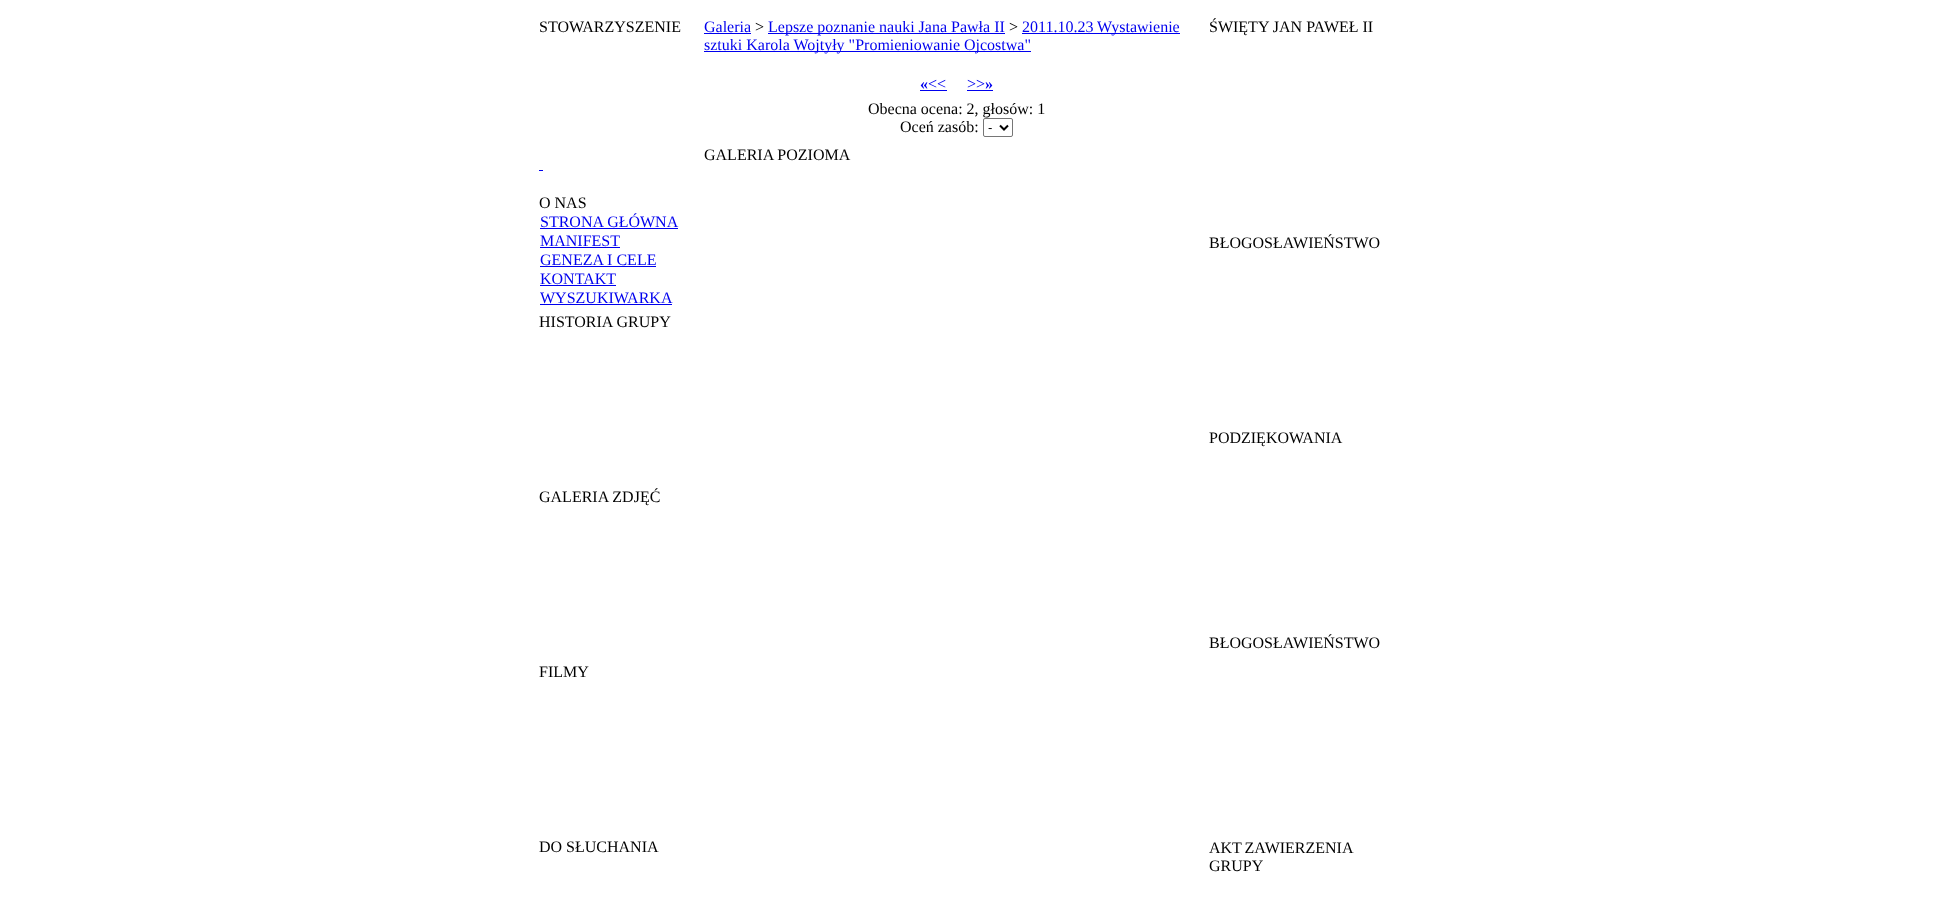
async function draw(canvas) {
	canvas.width = 1948;
	canvas.height = 911;
	const c = canvas.getContext('2d');
	c.miterLimit = 4;
	c.fontKerning = 'normal';

	c.fillStyle = '#fff';
	c.fillRect(0, 0, 1948, 911);
	c.font = '16px Liberation Serif';
	c.fillStyle = '#000';
	c.fillText('STOWARZYSZENIE', 539, 32);
	c.fillStyle = '#00e';
	c.fillRect(539, 170, 4, 1);
	c.fillStyle = '#000';
	c.fillText('O NAS', 539, 208);
	c.fillStyle = '#00e';
	c.fillText('STRONA GŁÓWNA', 540, 227);
	c.fillRect(540, 228, 138, 1);
	c.fillText('MANIFEST', 540, 246);
	c.fillRect(540, 247, 80, 1);
	c.fillText('GENEZA I CELE', 540, 265);
	c.fillRect(540, 266, 116, 1);
	c.fillText('KONTAKT', 540, 284);
	c.fillRect(540, 285, 76, 1);
	c.fillText('WYSZUKIWARKA', 540, 303);
	c.fillRect(540, 304, 132, 1);
	c.fillStyle = '#000';
	for (const [text, x, y] of [
		['HISTORIA GRUPY', 539, 327],
		['GALERIA ZDJĘĆ', 539, 502],
		['FILMY', 539, 677],
		['DO SŁUCHANIA', 539, 852],
	]) {
		c.fillText(text, x, y);
	}
	c.fillStyle = '#00e';
	c.fillText('Galeria', 704, 32);
	c.fillRect(704, 33, 47, 1);
	c.fillStyle = '#000';
	c.fillText('>', 755, 32);
	c.fillStyle = '#00e';
	c.fillRect(768, 33, 237, 1);
	c.fillText('Lepsze poznanie nauki Jana Pawła II', 768, 32);
	c.fillStyle = '#000';
	c.fillText('>', 1009, 32);
	c.fillStyle = '#00e';
	c.fillRect(1022, 33, 158, 1);
	c.fillText('2011.10.23 Wystawienie', 1022, 32);
	c.fillRect(704, 51, 327, 1);
	c.fillText('sztuki Karola Wojtyły "Promieniowanie Ojcostwa"', 704, 50);
	c.font = 'bold 16px Liberation Serif';
	c.fillText('«', 920, 89);
	c.fillRect(920, 90, 27, 1);
	c.font = '16px Liberation Serif';
	c.fillText('<<', 928, 89);
	c.fillText('>>', 967, 89);
	c.font = 'bold 16px Liberation Serif';
	c.fillText('»', 985, 89);
	c.fillRect(967, 90, 26, 1);
	c.font = '16px Liberation Serif';
	c.fillStyle = '#000';
	c.fillText('Obecna ocena: 2, głosów: 1', 868, 114);
	c.fillText('Oceń zasób:', 900, 132);
	c.beginPath();
	c.roundRect(983.5, 118.5, 29, 18, 1.5);
	c.strokeStyle = '#767676';
	c.stroke();
	c.beginPath();
	c.moveTo(1000, 125.5);
	c.lineTo(1004, 129.5);
	c.lineTo(1008, 125.5);
	c.strokeStyle = '#000';
	c.lineWidth = 2;
	c.stroke();
	c.font = '13px Liberation Sans';
	c.fillText('-', 988, 132);
	c.font = '16px Liberation Serif';
	for (const [text, x, y] of [
		['GALERIA POZIOMA', 704, 160],
		['ŚWIĘTY JAN PAWEŁ II', 1209, 32],
		['BŁOGOSŁAWIEŃSTWO', 1209, 248],
		['PODZIĘKOWANIA', 1209, 443],
		['BŁOGOSŁAWIEŃSTWO', 1209, 648],
	]) {
		c.fillText(text, x, y);
	}
	c.wordSpacing = '-1px';
	c.fillText('AKT ZAWIERZENIA', 1209, 853);
	c.wordSpacing = '0px';
	c.fillText('GRUPY', 1209, 871);
}

draw(document.querySelector('canvas'));
